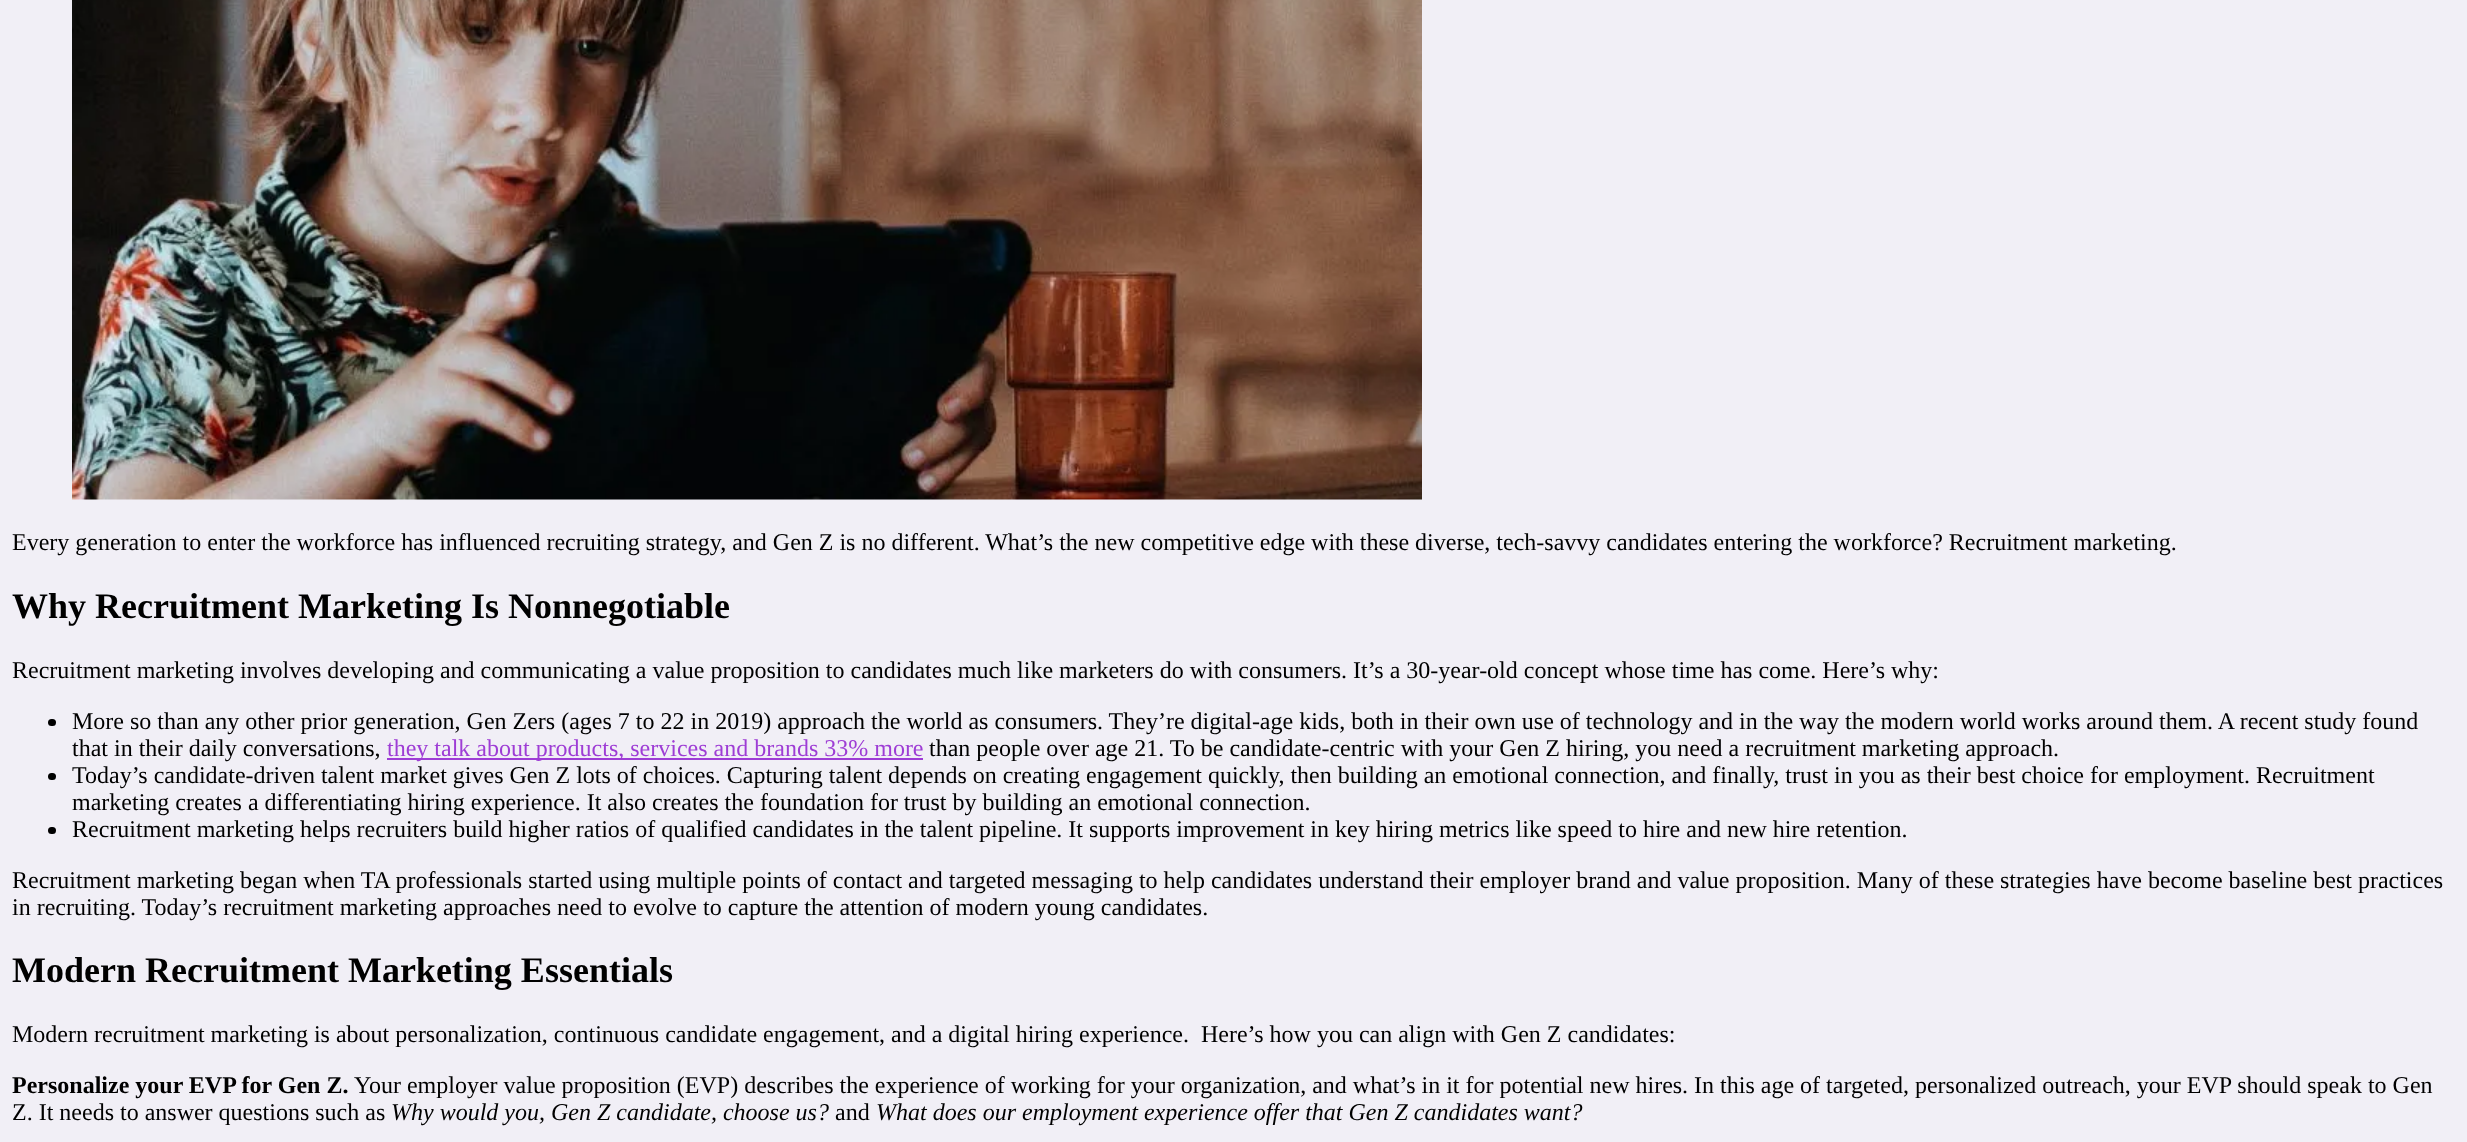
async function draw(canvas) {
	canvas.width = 2467;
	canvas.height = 1142;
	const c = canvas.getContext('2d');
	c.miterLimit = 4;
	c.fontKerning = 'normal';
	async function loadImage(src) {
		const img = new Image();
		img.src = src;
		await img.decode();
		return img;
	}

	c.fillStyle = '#f1eff6';
	c.fillRect(0, 0, 2467, 1142);
	c.drawImage(await loadImage('img1.png'), 72, 0, 1350, 500);
	c.font = '24px Liberation Serif';
	c.fillStyle = '#000';
	c.fillText('Every generation to enter the workforce has influenced recruiting strategy, and Gen Z is no different. What’s the new competitive edge with these diverse, tech-savvy candidates entering the workforce? Recruitment marketing.', 12, 550);
	c.font = 'bold 36px Liberation Serif';
	c.fillText('Why Recruitment Marketing Is Nonnegotiable', 12, 618);
	c.font = '24px Liberation Serif';
	c.fillText('Recruitment marketing involves developing and communicating a value proposition to candidates much like marketers do with consumers. It’s a 30-year-old concept whose time has come. Here’s why:', 12, 678);
	c.beginPath();
	c.roundRect(48, 719, 8, 7, 3.5);
	c.fill();
	c.fillText('More so than any other prior generation, Gen Zers (ages 7 to 22 in 2019) approach the world as consumers. They’re digital-age kids, both in their own use of technology and in the way the modern world works around them. A recent study found', 72, 729);
	c.fillText('that in their daily conversations,', 72, 756);
	c.fillStyle = '#9e3dd5';
	c.fillRect(387, 758, 536, 2);
	c.fillText('they talk about products, services and brands 33% more', 387, 756);
	c.fillStyle = '#000';
	c.fillText('than people over age 21. To be candidate-centric with your Gen Z hiring, you need a recruitment marketing approach.', 929, 756);
	c.beginPath();
	c.roundRect(48, 773, 8, 7, 3.5);
	c.fill();
	c.fillText('Today’s candidate-driven talent market gives Gen Z lots of choices. Capturing talent depends on creating engagement quickly, then building an emotional connection, and finally, trust in you as their best choice for employment. Recruitment', 72, 783);
	c.fillText('marketing creates a differentiating hiring experience. It also creates the foundation for trust by building an emotional connection.', 72, 810);
	c.beginPath();
	c.roundRect(48, 827, 8, 7, 3.5);
	c.fill();
	for (const [text, x, y] of [
		['Recruitment marketing helps recruiters build higher ratios of qualified candidates in the talent pipeline. It supports improvement in key hiring metrics like speed to hire and new hire retention.', 72, 837],
		['Recruitment marketing began when TA professionals started using multiple points of contact and targeted messaging to help candidates understand their employer brand and value proposition. Many of these strategies have become baseline best practices', 12, 888],
		['in recruiting. Today’s recruitment marketing approaches need to evolve to capture the attention of modern young candidates.', 12, 915],
	]) {
		c.fillText(text, x, y);
	}
	c.font = 'bold 36px Liberation Serif';
	c.fillText('Modern Recruitment Marketing Essentials', 12, 982);
	c.font = '24px Liberation Serif';
	c.fillText('Modern recruitment marketing is about personalization, continuous candidate engagement, and a digital hiring experience.  Here’s how you can align with Gen Z candidates:', 12, 1042);
	c.font = 'bold 24px Liberation Serif';
	c.fillText('Personalize your EVP for Gen Z.', 12, 1093);
	c.font = '24px Liberation Serif';
	c.fillText('Your employer value proposition (EVP) describes the experience of working for your organization, and what’s in it for potential new hires. In this age of targeted, personalized outreach, your EVP should speak to Gen', 354, 1093);
	c.fillText('Z. It needs to answer questions such as', 12, 1120);
	c.font = 'italic 24px Liberation Serif';
	c.fillText('Why would you, Gen Z candidate, choose us?', 391, 1120);
	c.font = '24px Liberation Serif';
	c.fillText('and', 835, 1120);
	c.font = 'italic 24px Liberation Serif';
	c.fillText('What does our employment experience offer that Gen Z candidates want?', 876, 1120);
}

draw(document.querySelector('canvas'));
